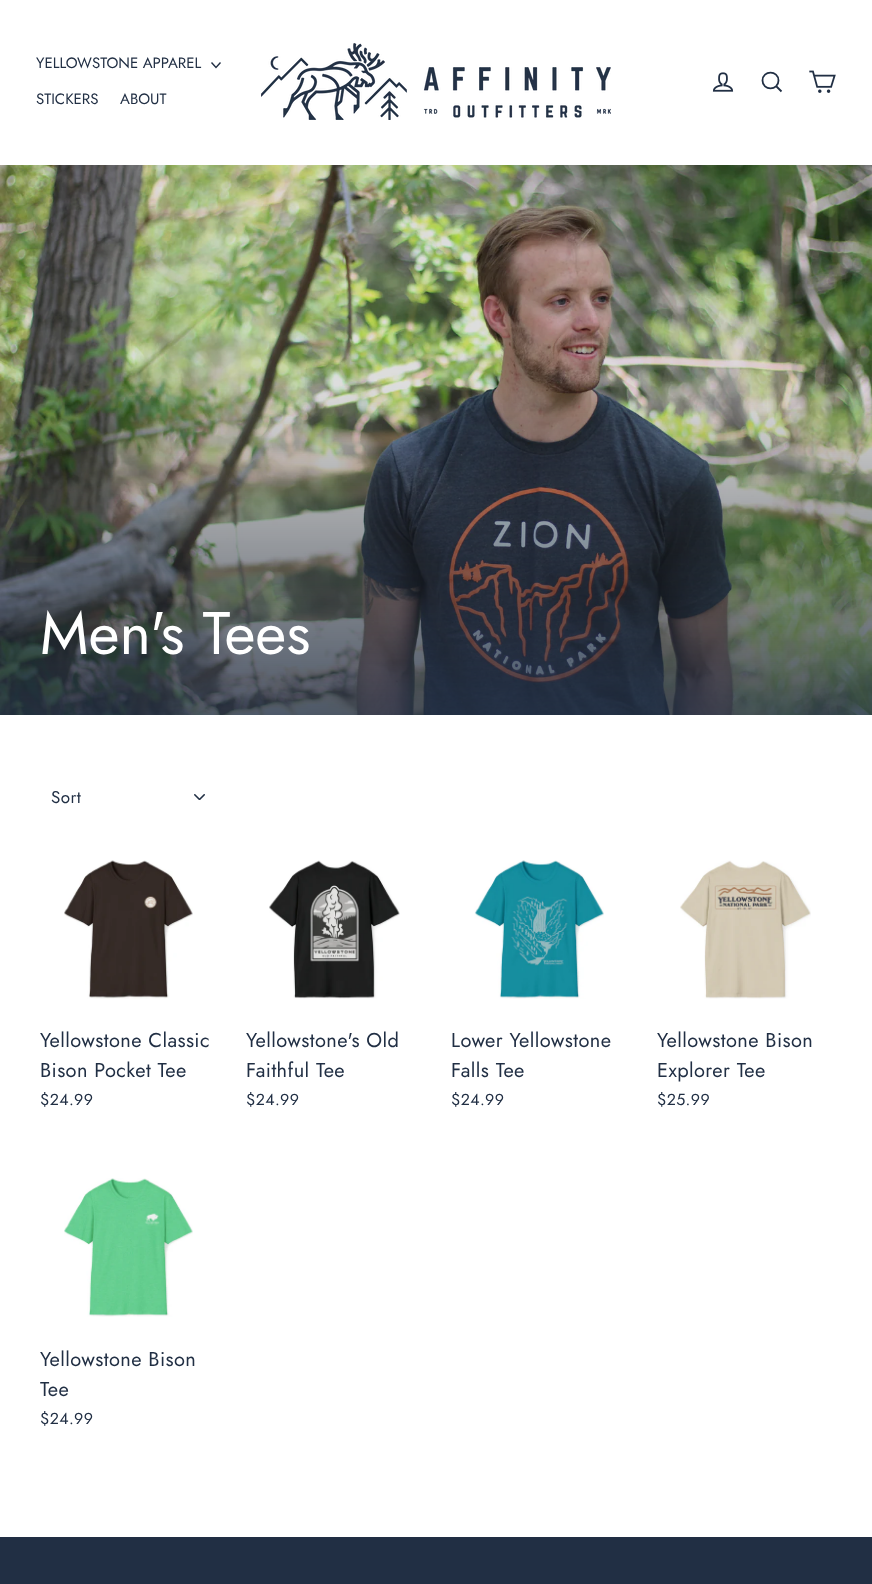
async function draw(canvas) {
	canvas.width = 872;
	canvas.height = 1584;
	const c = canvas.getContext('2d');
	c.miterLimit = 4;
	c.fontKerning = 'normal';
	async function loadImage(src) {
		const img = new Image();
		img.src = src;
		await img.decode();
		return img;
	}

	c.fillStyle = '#fff';
	c.fillRect(0, 0, 872, 1584);
	c.font = '15px Jost';
	c.fillStyle = '#212f44';
	c.fillText('YELLOWSTONE APPAREL', 36, 68);
	c.beginPath();
	c.moveTo(211.5, 62.5);
	c.lineTo(216, 67.5);
	c.lineTo(220.5, 62.5);
	c.strokeStyle = '#212f44';
	c.lineWidth = 1.4;
	c.stroke();
	c.fillText('STICKERS', 36, 104);
	c.fillText('ABOUT', 120, 104);
	c.drawImage(await loadImage('img1.png'), 261, 43, 350, 77);
	c.drawImage(await loadImage('img2.png'), 712, 72, 22, 20);
	c.beginPath();
	c.moveTo(778.5, 80.5);
	c.bezierCurveTo(778.5, 91, 762.5, 91, 762.5, 80.5);
	c.bezierCurveTo(762.5, 70, 778.5, 70, 778.5, 80.5);
	c.closePath();
	c.moveTo(781.5, 91.5);
	c.lineTo(776.5, 86.5);
	c.lineWidth = 1.8;
	c.stroke();
	c.drawImage(await loadImage('img3.png'), 809, 70, 27, 23);
	c.drawImage(await loadImage('img4.png'), 0, 165, 872, 550);
	c.font = '60px Jost';
	c.fillStyle = '#fff';
	c.fillText('Men\'s Tees', 40, 654);
	c.drawImage(await loadImage('img5.png'), 194, 794, 11, 6);
	c.letterSpacing = '0.4px';
	c.font = '17px Jost';
	c.fillStyle = '#212f44';
	c.fillText('Sort', 51, 803);
	c.drawImage(await loadImage('img6.png'), 64, 860, 129, 139);
	c.font = '20px Jost';
	c.fillText('Yellowstone Classic', 40, 1047);
	c.fillText('Bison Pocket Tee', 40, 1077);
	c.font = '16px Jost';
	c.fillText('$24.99', 40, 1105);
	c.drawImage(await loadImage('img7.png'), 269, 860, 131, 139);
	c.font = '20px Jost';
	c.fillText('Yellowstone\'s Old', 246, 1047);
	c.fillText('Faithful Tee', 246, 1077);
	c.font = '16px Jost';
	c.fillText('$24.99', 246, 1105);
	c.drawImage(await loadImage('img8.png'), 474, 860, 130, 139);
	c.font = '20px Jost';
	c.fillText('Lower Yellowstone', 451, 1047);
	c.fillText('Falls Tee', 451, 1077);
	c.font = '16px Jost';
	c.fillText('$24.99', 451, 1105);
	c.drawImage(await loadImage('img9.png'), 680, 860, 131, 139);
	c.font = '20px Jost';
	c.fillText('Yellowstone Bison', 657, 1047);
	c.fillText('Explorer Tee', 657, 1077);
	c.font = '16px Jost';
	c.fillText('$25.99', 657, 1105);
	c.drawImage(await loadImage('img10.png'), 64, 1178, 129, 139);
	c.font = '20px Jost';
	c.fillText('Yellowstone Bison', 40, 1366);
	c.fillText('Tee', 40, 1396);
	c.font = '16px Jost';
	c.fillText('$24.99', 40, 1424);
	c.fillRect(0, 1537, 872, 47);
}

draw(document.querySelector('canvas'));
